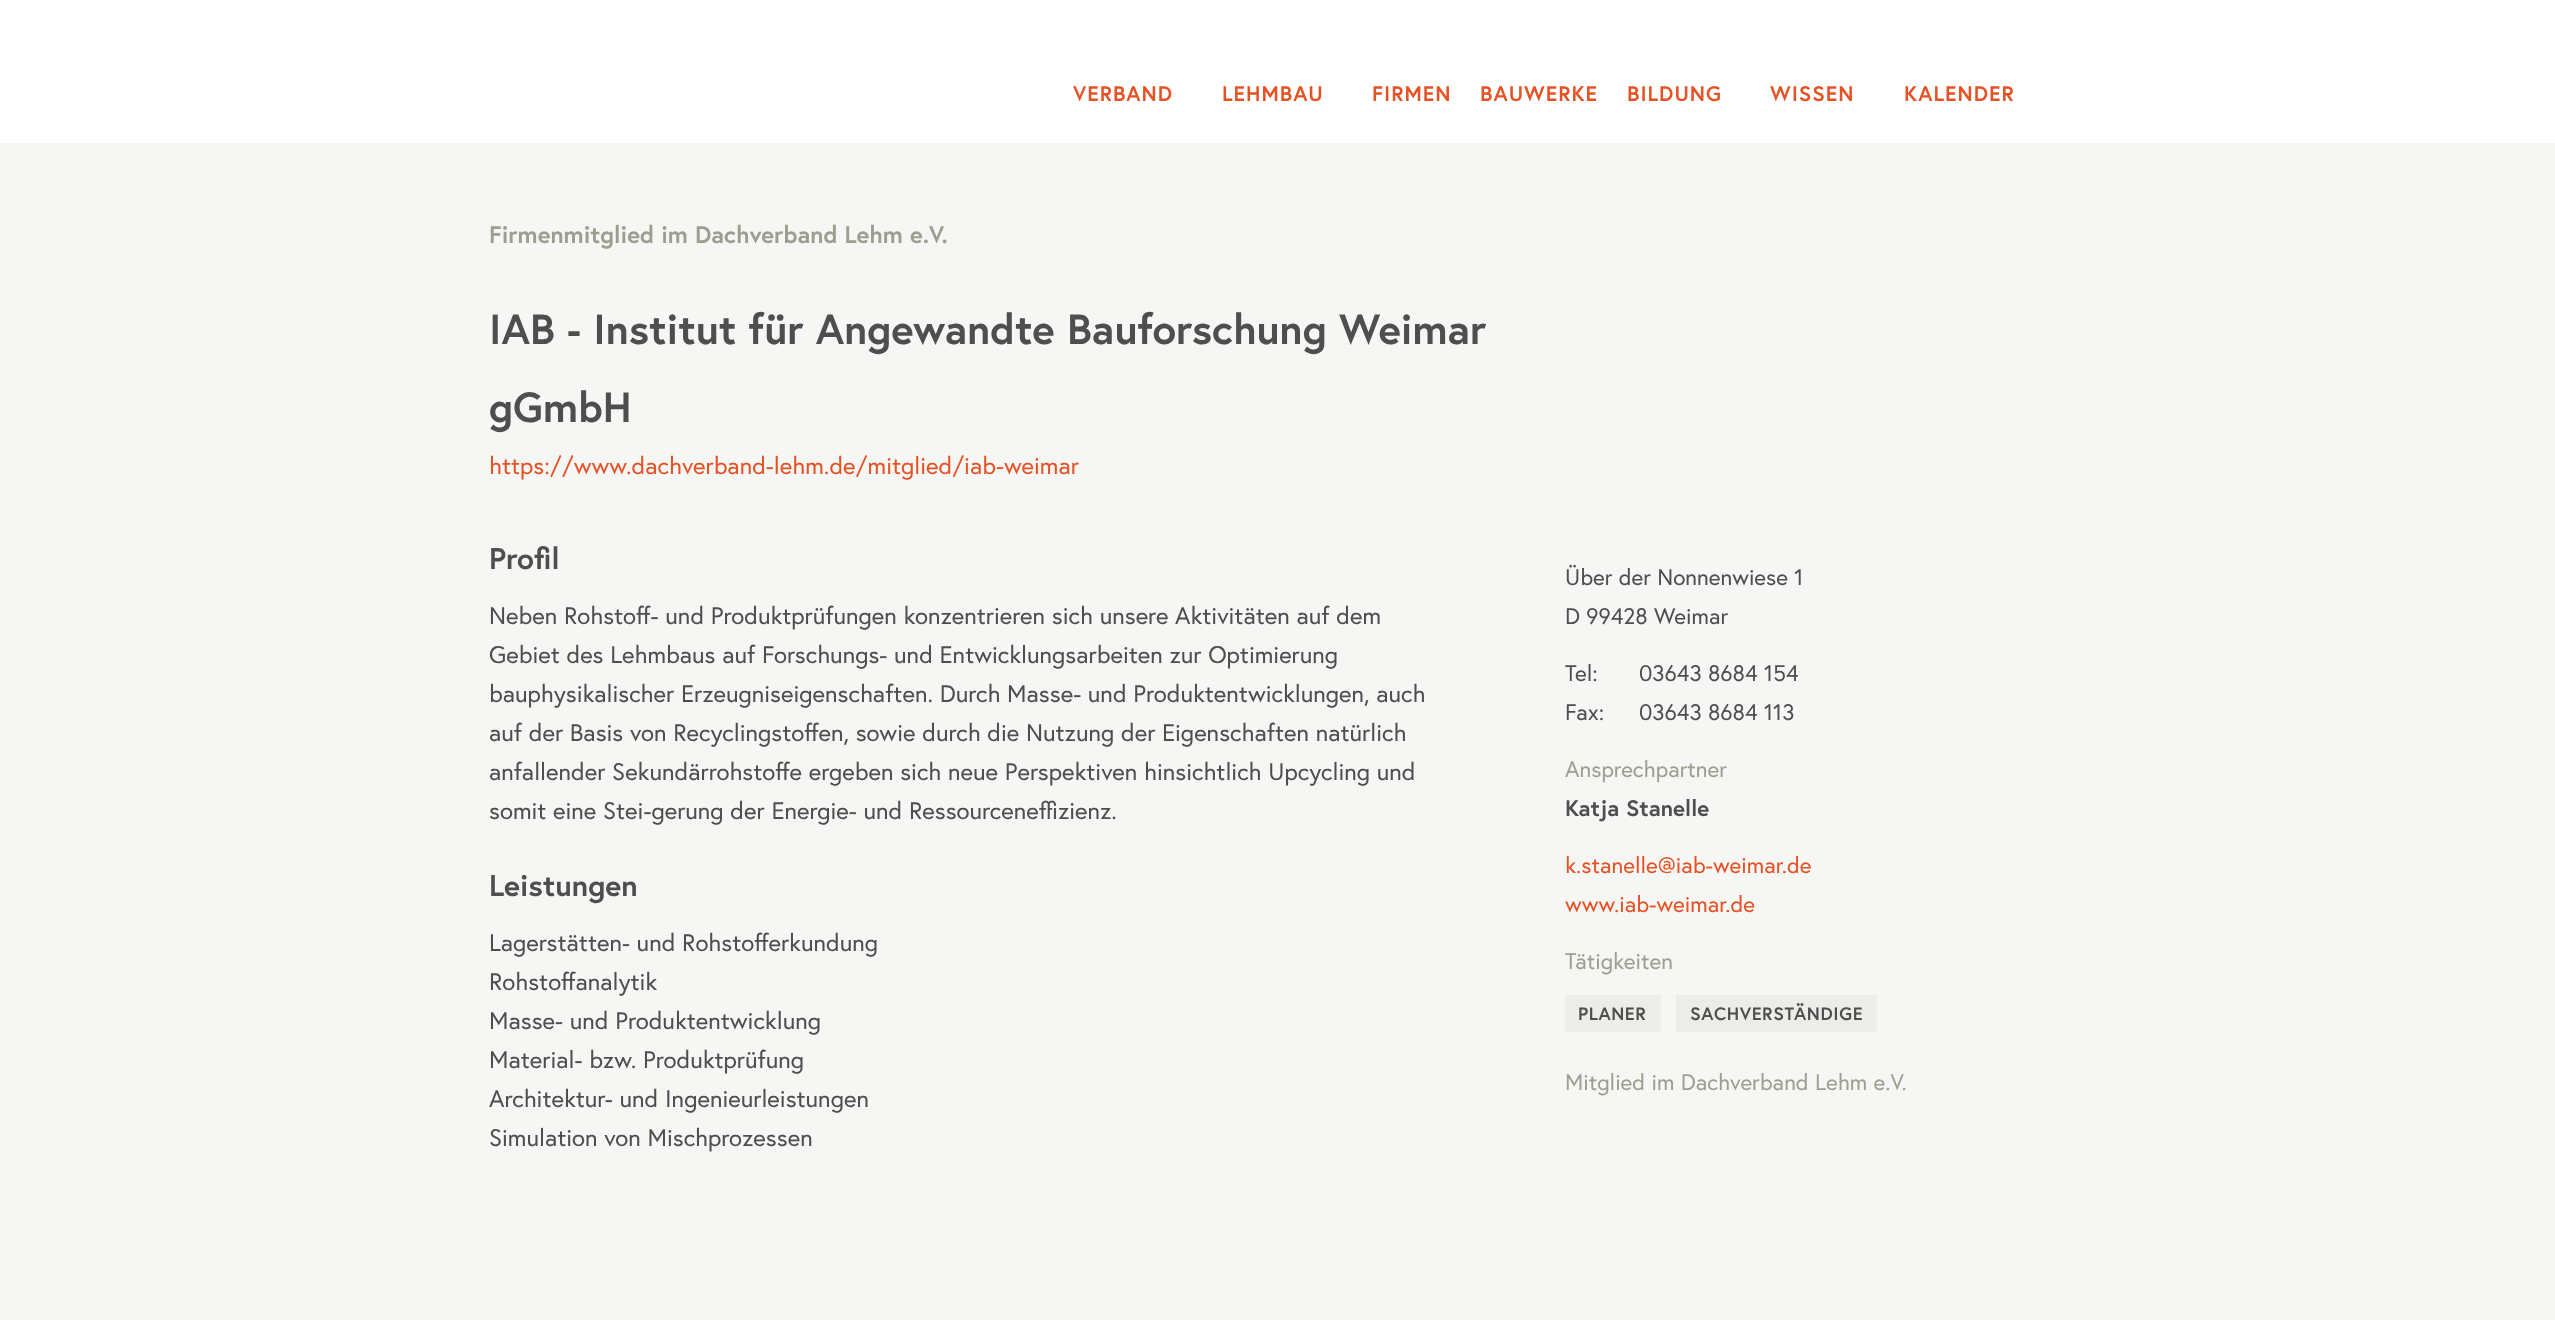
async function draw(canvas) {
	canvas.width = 2555;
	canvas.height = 1320;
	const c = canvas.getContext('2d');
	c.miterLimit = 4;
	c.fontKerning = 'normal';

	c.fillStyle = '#f6f6f4';
	c.fillRect(0, 0, 2555, 1320);
	c.fillStyle = '#fff';
	c.fillRect(0, 0, 2555, 143);
	c.letterSpacing = '1px';
	c.font = 'bold 21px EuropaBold';
	c.fillStyle = '#e55226';
	for (const [text, x, y] of [
		['VERBAND', 1073, 101],
		['LEHMBAU', 1222, 101],
		['FIRMEN', 1372, 101],
		['BAUWERKE', 1480, 101],
		['BILDUNG', 1627, 101],
		['WISSEN', 1770, 101],
		['KALENDER', 1904, 101],
	]) {
		c.fillText(text, x, y);
	}
	c.letterSpacing = '0px';
	c.font = 'bold 24px EuropaBold';
	c.fillStyle = '#9e9e90';
	c.fillText('Firmenmitglied im Dachverband Lehm e.V.', 489, 243);
	c.font = 'bold 42px EuropaBold';
	c.fillStyle = '#4c4f4e';
	c.fillText('IAB - Institut für Angewandte Bauforschung Weimar', 489, 344);
	c.fillText('gGmbH', 489, 422);
	c.font = '24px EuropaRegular';
	c.fillStyle = '#e55226';
	c.fillText('https://www.dachverband-lehm.de/mitglied/iab-weimar', 489, 474);
	c.font = 'bold 30px EuropaBold';
	c.fillStyle = '#4c4f4e';
	c.fillText('Profil', 489, 569);
	c.font = '24px EuropaRegular';
	for (const [text, x, y] of [
		['Neben Rohstoff- und Produktprüfungen konzentrieren sich unsere Aktivitäten auf dem', 489, 624],
		['Gebiet des Lehmbaus auf Forschungs- und Entwicklungsarbeiten zur Optimierung', 489, 663],
		['bauphysikalischer Erzeugniseigenschaften. Durch Masse- und Produktentwicklungen, auch', 489, 702],
		['auf der Basis von Recyclingstoffen, sowie durch die Nutzung der Eigenschaften natürlich', 489, 741],
		['anfallender Sekundärrohstoffe ergeben sich neue Perspektiven hinsichtlich Upcycling und', 489, 780],
		['somit eine Stei-gerung der Energie- und Ressourceneffizienz.', 489, 819],
	]) {
		c.fillText(text, x, y);
	}
	c.font = 'bold 30px EuropaBold';
	c.fillText('Leistungen', 489, 896);
	c.font = '24px EuropaRegular';
	for (const [text, x, y] of [
		['Lagerstätten- und Rohstofferkundung', 489, 951],
		['Rohstoffanalytik', 489, 990],
		['Masse- und Produktentwicklung', 489, 1029],
		['Material- bzw. Produktprüfung', 489, 1068],
		['Architektur- und Ingenieurleistungen', 489, 1107],
		['Simulation von Mischprozessen', 489, 1146],
	]) {
		c.fillText(text, x, y);
	}
	c.font = '22.5px EuropaRegular';
	for (const [text, x, y] of [
		['Über der Nonnenwiese 1', 1565, 585],
		['D 99428 Weimar', 1565, 624],
		['Tel:', 1565, 681],
		['03643 8684 154', 1639, 681],
		['Fax:', 1565, 720],
		['03643 8684 113', 1639, 720],
	]) {
		c.fillText(text, x, y);
	}
	c.fillStyle = '#9e9e90';
	c.fillText('Ansprechpartner', 1565, 777);
	c.font = 'bold 22.5px EuropaBold';
	c.fillStyle = '#4c4f4e';
	c.fillText('Katja Stanelle', 1565, 816);
	c.font = '22.5px EuropaRegular';
	c.fillStyle = '#e55226';
	c.fillText('k.stanelle@iab-weimar.de', 1565, 873);
	c.fillText('www.iab-weimar.de', 1565, 912);
	c.fillStyle = '#9e9e90';
	c.fillText('Tätigkeiten', 1565, 969);
	c.fillStyle = '#ecece8';
	c.fillRect(1565, 995, 96, 37);
	c.letterSpacing = '0.6px';
	c.font = 'bold 18px EuropaBold';
	c.fillStyle = '#4c4f4e';
	c.fillText('PLANER', 1578, 1020);
	c.fillStyle = '#ecece8';
	c.fillRect(1676, 995, 201, 37);
	c.fillStyle = '#4c4f4e';
	c.fillText('SACHVERSTÄNDIGE', 1690, 1020);
	c.letterSpacing = '0px';
	c.font = '22.5px EuropaRegular';
	c.fillStyle = '#9e9e90';
	c.fillText('Mitglied im Dachverband Lehm e.V.', 1565, 1090);
}

draw(document.querySelector('canvas'));
